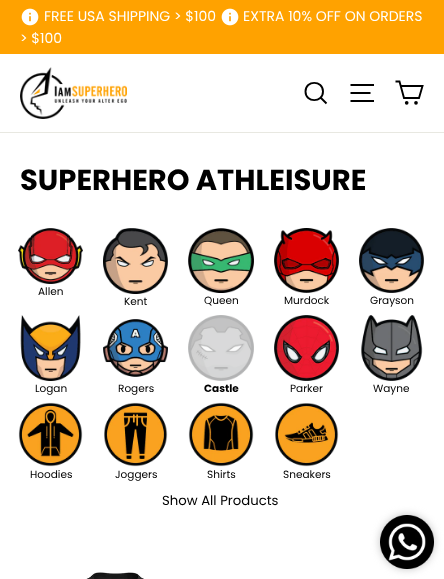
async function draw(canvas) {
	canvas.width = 444;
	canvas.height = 579;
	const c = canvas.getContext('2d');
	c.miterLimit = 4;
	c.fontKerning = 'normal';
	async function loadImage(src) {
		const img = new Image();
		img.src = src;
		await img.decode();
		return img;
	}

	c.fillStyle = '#fff';
	c.fillRect(0, 0, 444, 579);
	c.fillStyle = '#ffa200';
	c.fillRect(0, 0, 444, 54);
	c.drawImage(await loadImage('img1.png'), 21, 8, 18, 18);
	c.font = '14px Poppins';
	c.fillStyle = '#fff';
	c.fillText('FREE USA SHIPPING > $100', 44, 21);
	c.drawImage(await loadImage('img1.png'), 221, 8, 18, 18);
	c.fillText('EXTRA 10% OFF ON ORDERS', 243, 21);
	c.fillText('> $100', 20, 43);
	c.fillStyle = '#e8e8e1';
	c.fillRect(0, 132, 444, 1);
	c.drawImage(await loadImage('img2.png'), 20, 67, 107, 52);
	c.beginPath();
	c.moveTo(323, 91.5);
	c.bezierCurveTo(323, 103, 305.5, 103, 305.5, 91.5);
	c.bezierCurveTo(305.5, 80, 323, 80, 323, 91.5);
	c.closePath();
	c.moveTo(326.5, 103.5);
	c.lineTo(320.5, 97.5);
	c.strokeStyle = '#000';
	c.lineWidth = 1.9;
	c.stroke();
	c.beginPath();
	c.moveTo(350.5, 85);
	c.lineTo(374, 85);
	c.moveTo(350.5, 93);
	c.lineTo(370.5, 93);
	c.moveTo(350.5, 101);
	c.lineTo(374, 101);
	c.stroke();
	c.beginPath();
	c.moveTo(400.5, 86);
	c.lineTo(422.5, 86);
	c.lineTo(419, 98);
	c.lineTo(404, 98);
	c.lineTo(399.5, 81.5);
	c.lineTo(395.5, 81.5);
	c.stroke();
	c.beginPath();
	c.arc(406.7, 102.8, 0.9, 0, 2 * Math.PI);
	c.stroke();
	c.beginPath();
	c.arc(416, 102.8, 0.9, 0, 2 * Math.PI);
	c.stroke();
	c.font = 'bold 29px Poppins';
	c.fillStyle = '#000';
	c.fillText('SUPERHERO ATHLEISURE', 20, 190);
	c.drawImage(await loadImage('img3.png'), 18, 228, 65, 56);
	c.font = '10.5px Poppins';
	c.fillText('Allen', 38, 295);
	c.drawImage(await loadImage('img4.png'), 103, 228, 65, 66);
	c.fillText('Kent', 124, 305);
	c.drawImage(await loadImage('img5.png'), 188, 228, 66, 65);
	c.fillText('Queen', 204, 304);
	c.drawImage(await loadImage('img6.png'), 274, 228, 65, 65);
	c.fillText('Murdock', 284, 304);
	c.drawImage(await loadImage('img7.png'), 359, 228, 65, 65);
	c.fillText('Grayson', 370, 304);
	c.drawImage(await loadImage('img8.png'), 20, 315, 61, 66);
	c.fillText('Logan', 35, 392);
	c.drawImage(await loadImage('img9.png'), 103, 319, 65, 58);
	c.fillText('Rogers', 118, 392);
	c.drawImage(await loadImage('img10.png'), 188, 315, 66, 66);
	c.font = 'bold 10.5px Poppins';
	c.fillText('Castle', 204, 392);
	c.drawImage(await loadImage('img11.png'), 274, 315, 65, 66);
	c.font = '10.5px Poppins';
	c.fillText('Parker', 290, 392);
	c.drawImage(await loadImage('img12.png'), 361, 315, 62, 66);
	c.fillText('Wayne', 373, 392);
	c.drawImage(await loadImage('img13.png'), 18, 402, 65, 65);
	c.fillText('Hoodies', 30, 478);
	c.drawImage(await loadImage('img14.png'), 104, 402, 64, 65);
	c.fillText('Joggers', 115, 478);
	c.drawImage(await loadImage('img15.png'), 188, 402, 66, 65);
	c.fillText('Shirts', 207, 478);
	c.drawImage(await loadImage('img16.png'), 275, 403, 64, 64);
	c.fillText('Sneakers', 283, 478);
	c.font = '13.25px Poppins';
	c.fillText('Show All Products', 162, 505);
	c.drawImage(await loadImage('img17.png'), 86, 572, 58, 7);
	c.fillStyle = '#c2c2c2';
	c.filter = 'blur(4px)';
	c.beginPath();
	c.roundRect(380, 515, 54, 54, 27);
	c.fill();
	c.filter = 'none';
	c.drawImage(await loadImage('img18.png'), 380, 515, 54, 54);
}

draw(document.querySelector('canvas'));
